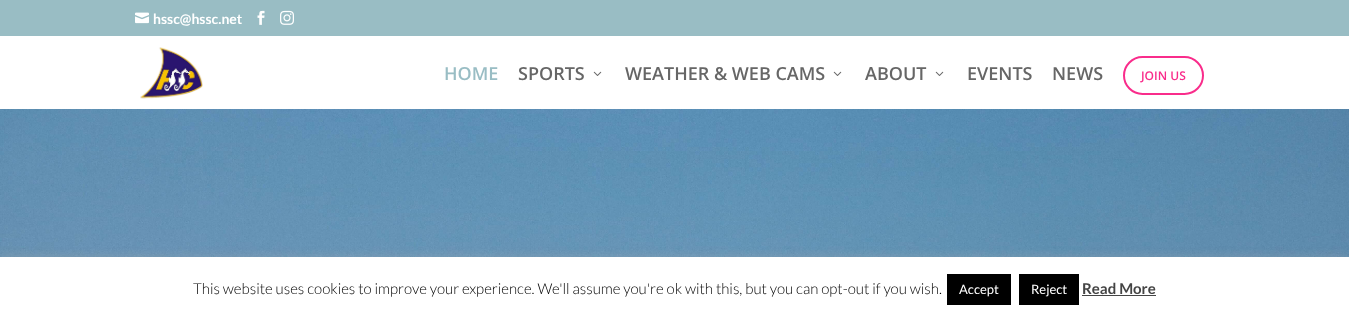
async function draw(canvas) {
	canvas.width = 1349;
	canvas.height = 317;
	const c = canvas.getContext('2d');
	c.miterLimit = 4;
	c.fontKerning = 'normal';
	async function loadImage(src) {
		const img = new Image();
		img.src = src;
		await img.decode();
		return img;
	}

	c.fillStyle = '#fff';
	c.fillRect(0, 0, 1349, 317);
	c.fillStyle = '#99bdc4';
	c.fillRect(0, 0, 1349, 36);
	c.drawImage(await loadImage('img1.png'), 135, 12, 14, 12);
	c.font = 'bold 14px Lato';
	c.fillStyle = '#fff';
	c.fillText('hssc@hssc.net', 153, 24);
	c.drawImage(await loadImage('img2.png'), 257, 10, 8, 15);
	c.drawImage(await loadImage('img3.png'), 280, 10, 14, 15);
	c.drawImage(await loadImage('img4.png'), 140, 47, 63, 52);
	c.font = '600 18px Open Sans';
	c.fillStyle = '#99bdc4';
	c.fillText('HOME', 444, 80);
	c.fillStyle = '#666';
	c.fillText('SPORTS', 518, 80);
	c.drawImage(await loadImage('img5.png'), 593, 71, 9, 5);
	c.fillText('WEATHER & WEB CAMS', 625, 80);
	c.drawImage(await loadImage('img5.png'), 833, 71, 9, 5);
	c.fillText('ABOUT', 865, 80);
	c.drawImage(await loadImage('img5.png'), 935, 71, 9, 5);
	c.fillText('EVENTS', 967, 80);
	c.fillText('NEWS', 1052, 80);
	c.beginPath();
	c.roundRect(1124, 57, 79, 37, 18.5);
	c.strokeStyle = '#f92c8b';
	c.lineWidth = 2;
	c.stroke();
	c.font = '600 12px Open Sans';
	c.fillStyle = '#f92c8b';
	c.fillText('JOIN US', 1141, 80);
	c.drawImage(await loadImage('img6.png'), 0, 109, 1349, 148);
	c.fillStyle = '#acabab4d';
	c.filter = 'blur(5px)';
	c.beginPath();
	c.rect(0, 256, 1349, 60);
	c.fill();
	c.filter = 'none';
	c.fillStyle = '#fff';
	c.fillRect(0, 257, 1349, 60);
	c.font = '300 15px Lato';
	c.fillStyle = '#000';
	c.fillText('This website uses cookies to improve your experience. We\'ll assume you\'re ok with this, but you can opt-out if you wish.', 193, 294);
	c.fillRect(947, 274, 64, 31);
	c.font = '13px Lato';
	c.fillStyle = '#fff';
	c.fillText('Accept', 959, 294);
	c.fillStyle = '#000';
	c.fillRect(1019, 274, 60, 31);
	c.fillStyle = '#fff';
	c.fillText('Reject', 1031, 294);
	c.font = 'bold 15px Lato';
	c.fillStyle = '#444';
	c.fillText('Read More', 1082, 294);
	c.fillRect(1082, 295, 74, 1);
}

draw(document.querySelector('canvas'));
